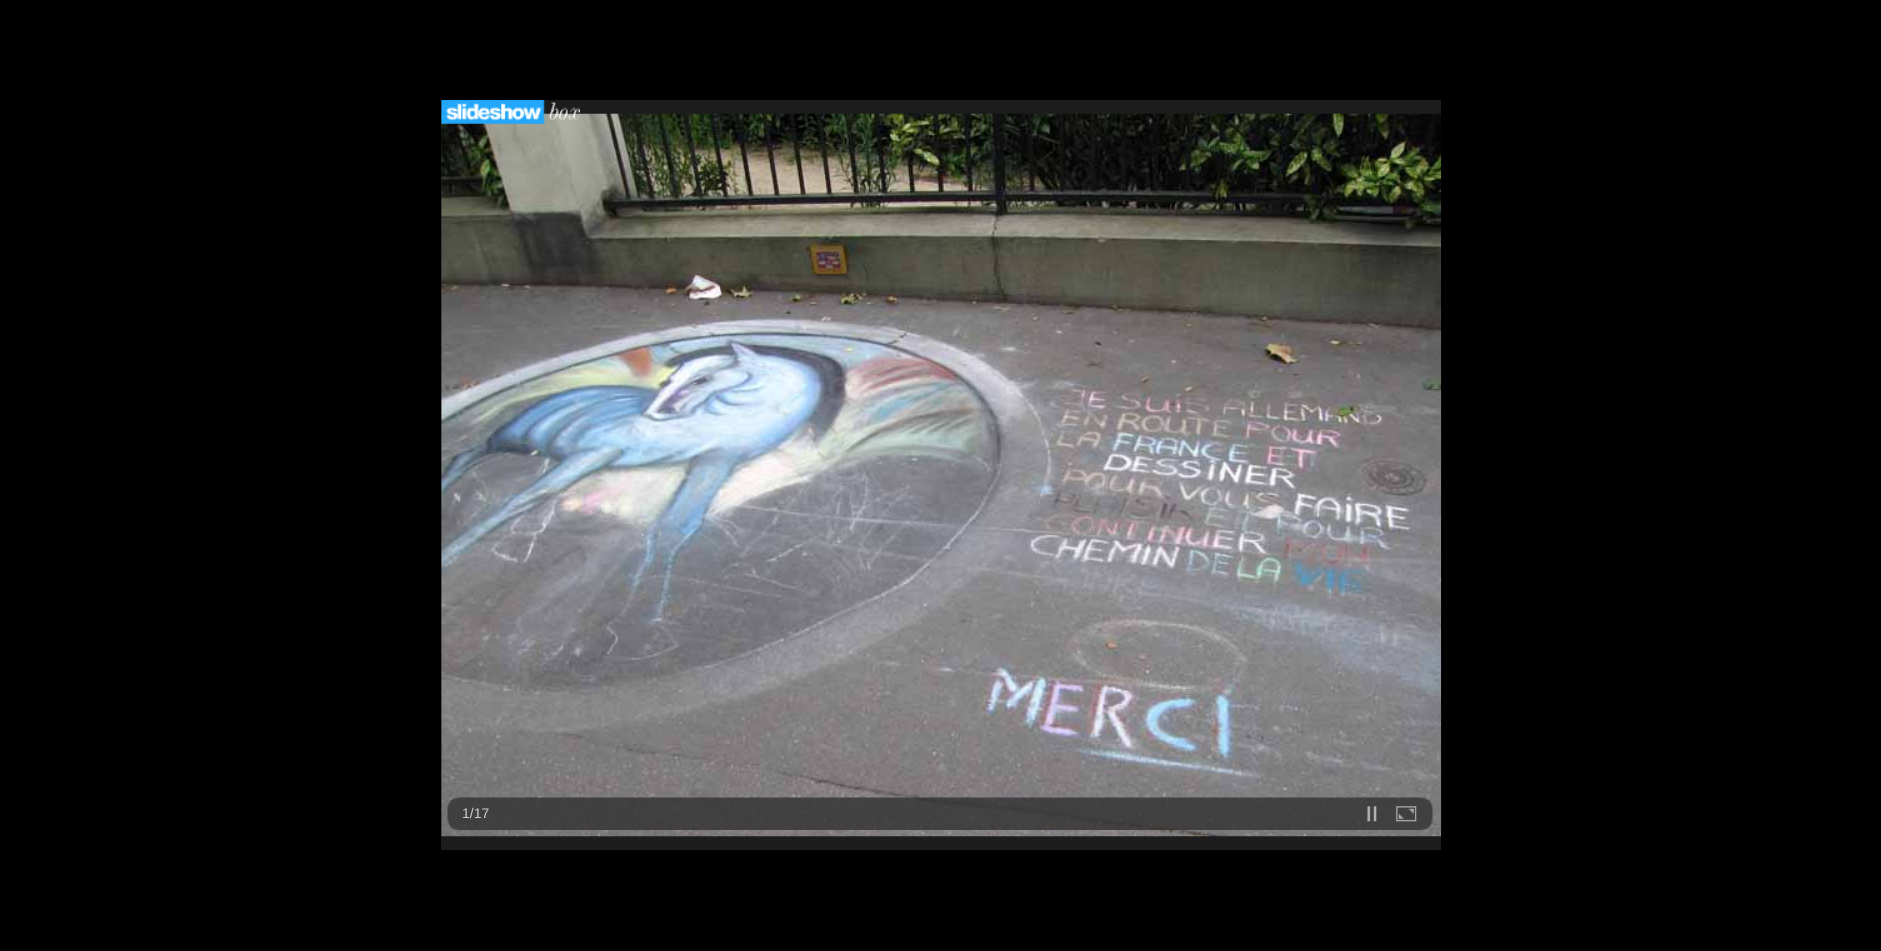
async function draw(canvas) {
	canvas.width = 1881;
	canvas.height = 951;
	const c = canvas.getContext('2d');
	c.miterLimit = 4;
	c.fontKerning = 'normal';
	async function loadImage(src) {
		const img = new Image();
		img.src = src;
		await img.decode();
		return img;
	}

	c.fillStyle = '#000';
	c.fillRect(0, 0, 1881, 951);
	c.fillStyle = '#1c1c1c';
	c.fillRect(441, 100, 1000, 750);
	c.drawImage(await loadImage('img2.png'), 441, 113, 1001, 724);
	c.drawImage(await loadImage('img1.png'), 441, 100, 139, 24);
	c.drawImage(await loadImage('img3.png'), 447, 797, 986, 33);
	c.font = '14px Liberation Sans';
	c.fillStyle = '#ccc';
	c.fillText('1/17', 462, 818);
	c.drawImage(await loadImage('img4.png'), 1367, 806, 10, 16);
	c.drawImage(await loadImage('img5.png'), 1396, 806, 21, 16);
}

draw(document.querySelector('canvas'));
